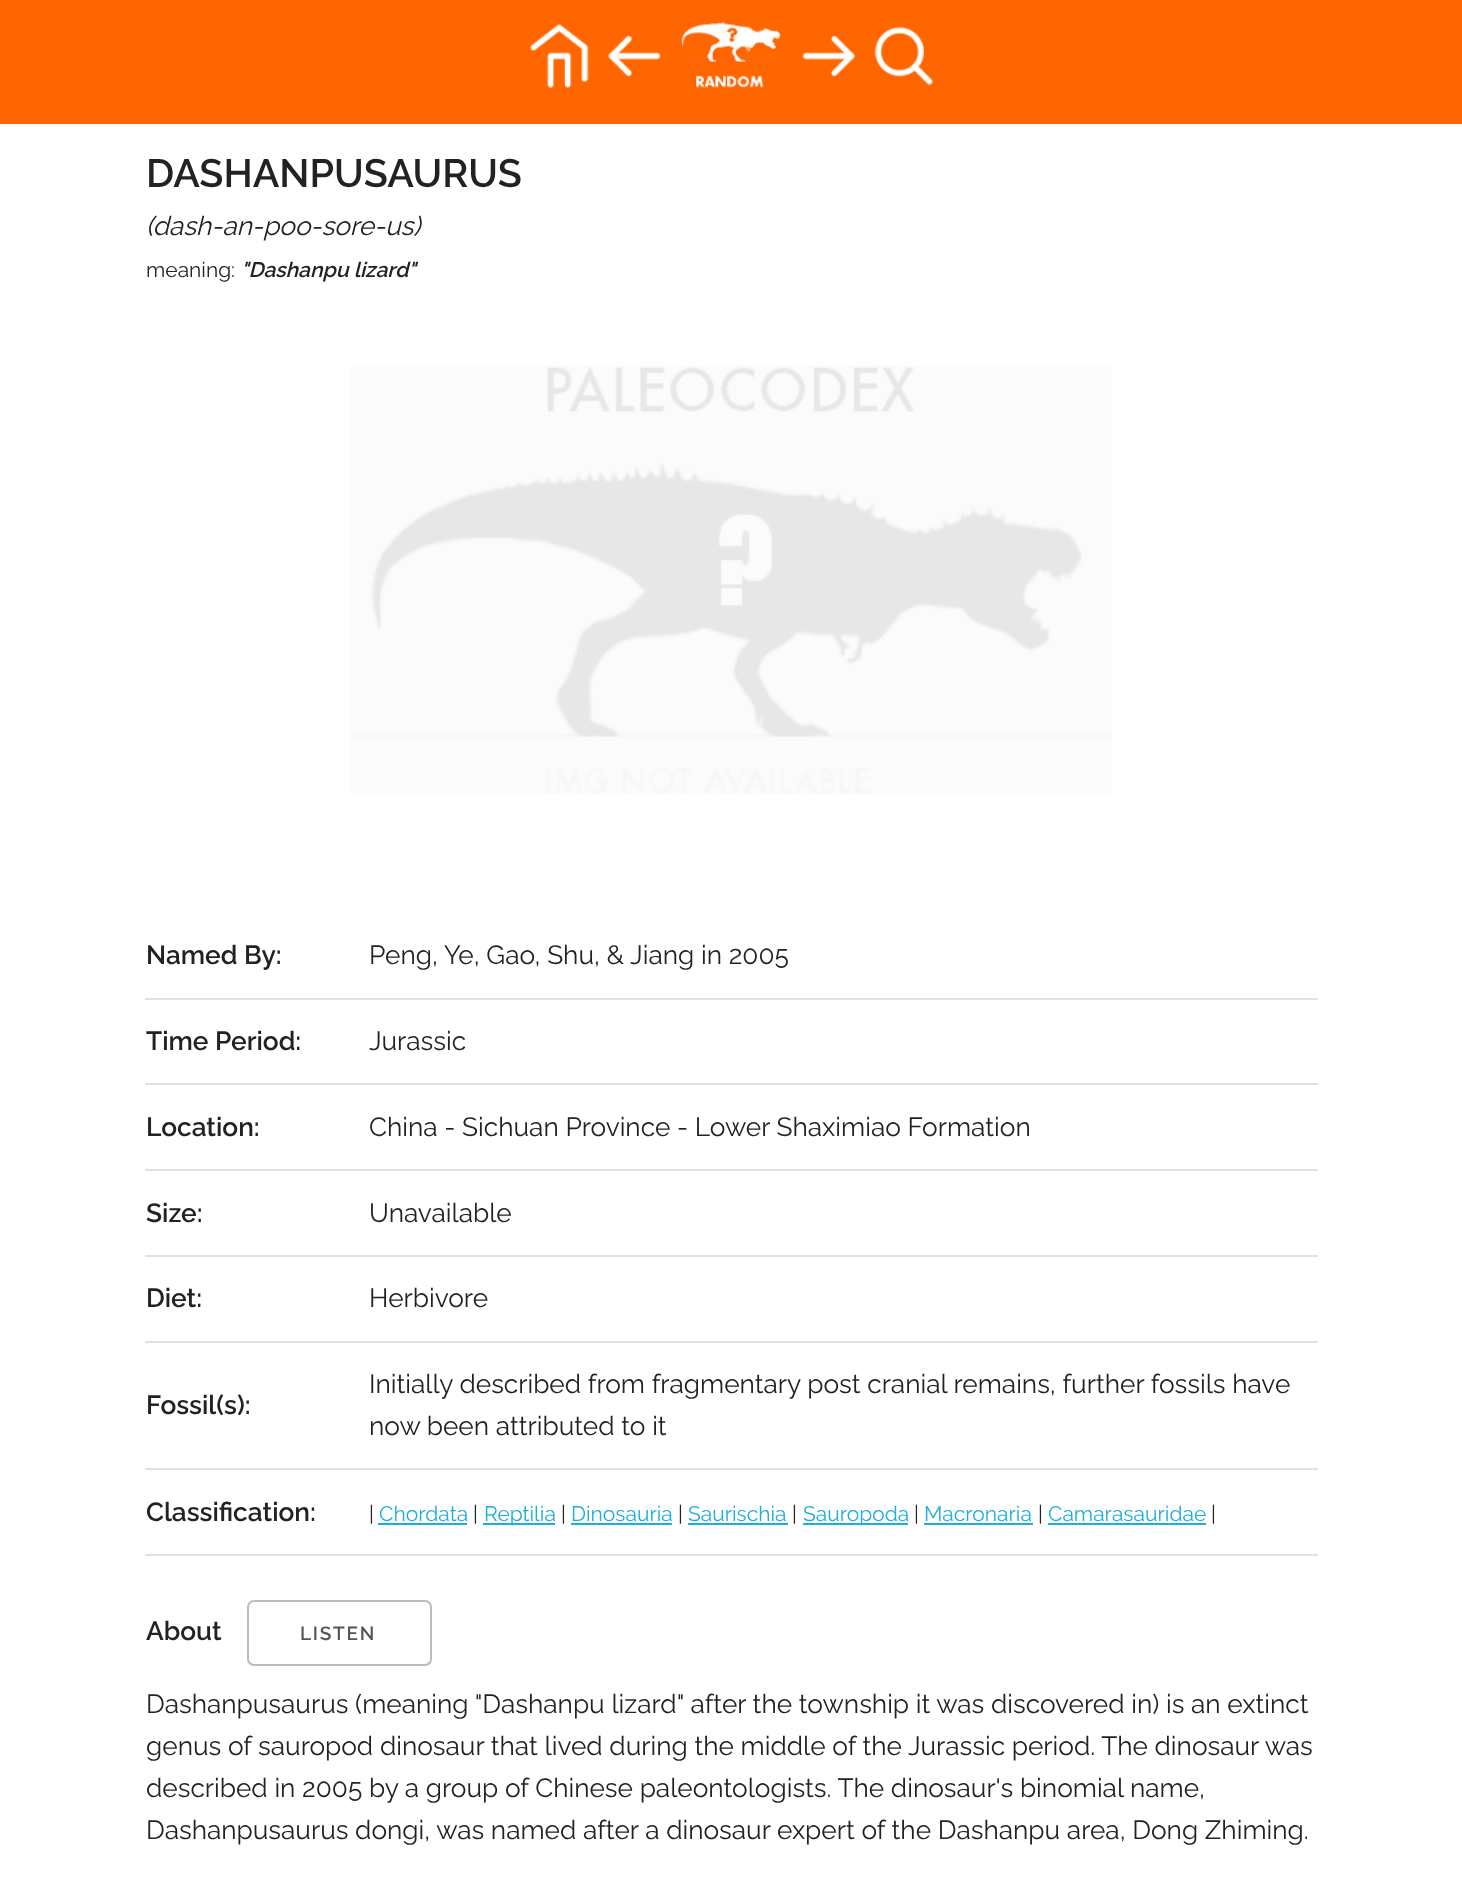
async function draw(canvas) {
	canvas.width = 1462;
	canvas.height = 1904;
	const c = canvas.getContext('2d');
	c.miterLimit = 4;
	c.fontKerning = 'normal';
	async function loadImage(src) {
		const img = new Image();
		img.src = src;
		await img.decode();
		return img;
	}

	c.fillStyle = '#fff';
	c.fillRect(0, 0, 1462, 1904);
	c.fillStyle = '#f60';
	c.fillRect(0, 0, 1462, 124);
	c.drawImage(await loadImage('img1.png'), 530, 24, 59, 64);
	c.drawImage(await loadImage('img2.png'), 607, 35, 54, 42);
	c.drawImage(await loadImage('img3.png'), 680, 21, 102, 67);
	c.drawImage(await loadImage('img4.png'), 802, 35, 54, 42);
	c.drawImage(await loadImage('img5.png'), 874, 26, 59, 60);
	c.font = '600 39.4px Raleway';
	c.fillStyle = '#222';
	c.fillText('DASHANPUSAURUS', 146, 187);
	c.font = 'italic 26.25px Raleway';
	c.fillText('(dash-an-poo-sore-us)', 146, 235);
	c.font = '21px Raleway';
	c.fillText('meaning:', 146, 277);
	c.font = 'italic 600 21px Raleway';
	c.fillText('"Dashanpu lizard"', 241, 277);
	c.drawImage(await loadImage('img6.png'), 351, 365, 761, 430);
	c.font = '600 26.25px Raleway';
	c.fillText('Named By:', 146, 964);
	c.fillStyle = '#e1e1e1';
	c.fillRect(145, 998, 1173, 2);
	c.font = '26.25px Raleway';
	c.fillStyle = '#222';
	c.fillText('Peng, Ye, Gao, Shu, & Jiang in 2005', 369, 964);
	c.font = '600 26.25px Raleway';
	c.fillText('Time Period:', 146, 1050);
	c.fillStyle = '#e1e1e1';
	c.fillRect(145, 1083, 1173, 2);
	c.font = '26.25px Raleway';
	c.fillStyle = '#222';
	c.fillText('Jurassic', 369, 1050);
	c.font = '600 26.25px Raleway';
	c.fillText('Location:', 146, 1136);
	c.fillStyle = '#e1e1e1';
	c.fillRect(145, 1169, 1173, 2);
	c.font = '26.25px Raleway';
	c.fillStyle = '#222';
	c.fillText('China - Sichuan Province - Lower Shaximiao Formation', 369, 1136);
	c.font = '600 26.25px Raleway';
	c.fillText('Size:', 146, 1222);
	c.fillStyle = '#e1e1e1';
	c.fillRect(145, 1255, 1173, 2);
	c.font = '26.25px Raleway';
	c.fillStyle = '#222';
	c.fillText('Unavailable', 369, 1222);
	c.font = '600 26.25px Raleway';
	c.fillText('Diet:', 146, 1307);
	c.fillStyle = '#e1e1e1';
	c.fillRect(145, 1341, 1173, 2);
	c.font = '26.25px Raleway';
	c.fillStyle = '#222';
	c.fillText('Herbivore', 369, 1307);
	c.font = '600 26.25px Raleway';
	c.fillText('Fossil(s):', 146, 1414);
	c.fillStyle = '#e1e1e1';
	c.fillRect(145, 1468, 1173, 2);
	c.font = '26.25px Raleway';
	c.fillStyle = '#222';
	c.fillText('Initially described from fragmentary post cranial remains, further fossils have', 369, 1393);
	c.fillText('now been attributed to it', 369, 1435);
	c.font = '600 26.25px Raleway';
	c.fillText('Classification:', 146, 1521);
	c.fillStyle = '#e1e1e1';
	c.fillRect(145, 1554, 1173, 2);
	c.font = '21px Raleway';
	c.fillStyle = '#222';
	c.fillText('|', 369, 1521);
	c.fillStyle = '#1eaedb';
	c.fillText('Chordata', 379, 1521);
	c.fillRect(378, 1523, 89, 2);
	c.fillStyle = '#222';
	c.fillText('|', 473, 1521);
	c.fillStyle = '#1eaedb';
	c.fillRect(483, 1523, 72, 2);
	c.fillText('Reptilia', 484, 1521);
	c.fillStyle = '#222';
	c.fillText('|', 561, 1521);
	c.fillStyle = '#1eaedb';
	c.fillText('Dinosauria', 571, 1521);
	c.fillRect(571, 1523, 101, 2);
	c.fillStyle = '#222';
	c.fillText('|', 678, 1521);
	c.fillStyle = '#1eaedb';
	c.fillText('Saurischia', 688, 1521);
	c.fillRect(688, 1523, 100, 2);
	c.fillStyle = '#222';
	c.fillText('|', 792, 1521);
	c.fillStyle = '#1eaedb';
	c.fillRect(803, 1523, 105, 2);
	c.fillText('Sauropoda', 803, 1521);
	c.fillStyle = '#222';
	c.fillText('|', 914, 1521);
	c.fillStyle = '#1eaedb';
	c.fillText('Macronaria', 924, 1521);
	c.fillRect(924, 1523, 109, 2);
	c.fillStyle = '#222';
	c.fillText('|', 1038, 1521);
	c.fillStyle = '#1eaedb';
	c.fillText('Camarasauridae', 1048, 1521);
	c.fillRect(1048, 1523, 158, 2);
	c.fillStyle = '#222';
	c.fillText('|', 1211, 1521);
	c.font = '600 26.25px Raleway';
	c.fillText('About', 146, 1640);
	c.beginPath();
	c.roundRect(248, 1601, 183, 64, 6);
	c.strokeStyle = '#bbb';
	c.lineWidth = 2;
	c.stroke();
	c.letterSpacing = '1.75px';
	c.font = '600 19px Raleway';
	c.fillStyle = '#555';
	c.fillText('LISTEN', 300, 1640);
	c.letterSpacing = '0px';
	c.font = '26.25px Raleway';
	c.fillStyle = '#222';
	for (const [text, x, y] of [
		['Dashanpusaurus (meaning "Dashanpu lizard" after the township it was discovered in) is an extinct', 146, 1713],
		['genus of sauropod dinosaur that lived during the middle of the Jurassic period. The dinosaur was', 146, 1755],
		['described in 2005 by a group of Chinese paleontologists. The dinosaur\'s binomial name,', 146, 1797],
		['Dashanpusaurus dongi, was named after a dinosaur expert of the Dashanpu area, Dong Zhiming.', 146, 1839],
	]) {
		c.fillText(text, x, y);
	}
}

draw(document.querySelector('canvas'));
